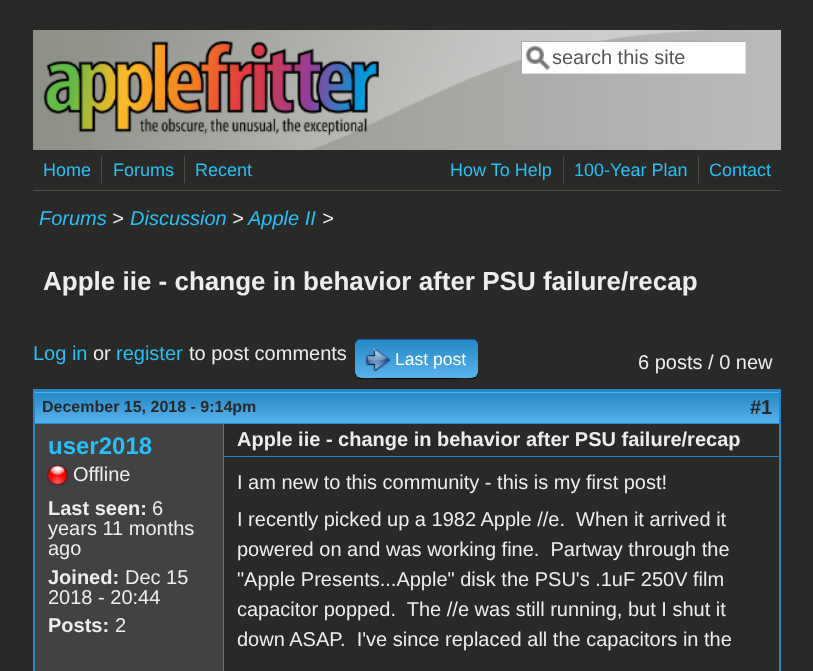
async function draw(canvas) {
	canvas.width = 813;
	canvas.height = 671;
	const c = canvas.getContext('2d');
	c.miterLimit = 4;
	c.fontKerning = 'normal';
	async function loadImage(src) {
		const img = new Image();
		img.src = src;
		await img.decode();
		return img;
	}
	let gradient;

	c.fillStyle = '#292928';
	c.fillRect(0, 0, 813, 671);
	gradient = c.createLinearGradient(33, 90, 781, 90);
	gradient.addColorStop(0, '#8d9087');
	gradient.addColorStop(1, '#bababa');
	c.fillStyle = gradient;
	c.fillRect(33, 30, 748, 120);
	c.drawImage(await loadImage('img1.png'), 92, 30, 689, 120);
	c.drawImage(await loadImage('img2.png'), 43, 41, 336, 95);
	c.fillStyle = '#fff';
	c.fillRect(522, 42, 223, 31);
	c.drawImage(await loadImage('img3.png'), 526, 46, 25, 25);
	for (const [x, y, w, h, color] of [
		[521, 41, 225, 1, '#aaa'],
		[745, 41, 1, 33, '#ddd'],
		[521, 73, 225, 1, '#ddd'],
		[521, 41, 1, 33, '#aaa'],
	]) {
		c.fillStyle = color;
		c.fillRect(x, y, w, h);
	}
	c.font = '20px Liberation Sans';
	c.fillStyle = '#555';
	c.fillText('search this site', 552, 64);
	c.fillStyle = '#494a45';
	c.fillRect(33, 190, 748, 1);
	c.font = '18px Liberation Sans';
	c.fillStyle = '#26c0f7';
	c.fillText('Home', 43, 176);
	c.fillStyle = '#494a45';
	c.fillRect(101, 156, 1, 27);
	c.fillStyle = '#26c0f7';
	c.fillText('Forums', 113, 176);
	c.fillStyle = '#494a45';
	c.fillRect(184, 156, 1, 27);
	c.fillStyle = '#26c0f7';
	c.fillText('Recent', 195, 176);
	c.fillText('How To Help', 450, 176);
	c.fillStyle = '#494a45';
	c.fillRect(563, 156, 1, 27);
	c.fillStyle = '#26c0f7';
	c.fillText('100-Year Plan', 574, 176);
	c.fillStyle = '#494a45';
	c.fillRect(698, 156, 1, 27);
	c.fillStyle = '#26c0f7';
	c.fillText('Contact', 709, 176);
	c.font = 'italic 20px Liberation Sans';
	c.fillText('Forums', 39, 225);
	c.fillStyle = '#ecedec';
	c.fillText('>', 112, 225);
	c.fillStyle = '#26c0f7';
	c.fillText('Discussion', 130, 225);
	c.fillStyle = '#ecedec';
	c.fillText('>', 232, 225);
	c.fillStyle = '#26c0f7';
	c.fillText('Apple II', 248, 225);
	c.fillStyle = '#ecedec';
	c.fillText('>', 322, 225);
	c.font = 'bold 26px Liberation Sans';
	c.fillText('Apple iie - change in behavior after PSU failure/recap', 43, 290);
	c.font = '20px Liberation Sans';
	c.fillStyle = '#26c0f7';
	c.fillText('Log in', 33, 360);
	c.fillStyle = '#ecedec';
	c.fillText('or', 93, 360);
	c.fillStyle = '#26c0f7';
	c.fillText('register', 116, 360);
	c.fillStyle = '#ecedec';
	c.fillText('to post comments', 189, 360);
	c.fillStyle = '#000';
	c.beginPath();
	c.moveTo(355, 371);
	c.lineTo(355, 373);
	c.bezierCurveTo(355, 376, 358, 379, 361, 379);
	c.lineTo(472, 379);
	c.bezierCurveTo(475, 379, 478, 376, 478, 373);
	c.lineTo(478, 346);
	c.lineTo(477, 343);
	c.lineTo(477, 373);
	c.bezierCurveTo(476, 382, 455, 378, 453, 378);
	c.lineTo(380, 378);
	c.bezierCurveTo(377, 378, 355, 382, 355, 371);
	c.closePath();
	c.fill();
	c.save();
	c.beginPath();
	c.roundRect(355, 339, 123, 39, 6);
	c.clip();
	gradient = c.createLinearGradient(355, 303, 355, 340);
	gradient.addColorStop(0, '#2587c4');
	gradient.addColorStop(1, '#58b3ed');
	c.fillStyle = gradient;
	c.fillRect(355, 339, 123, 1);
	gradient = c.createLinearGradient(355, 340, 355, 378);
	gradient.addColorStop(0, '#2587c4');
	gradient.addColorStop(1, '#58b3ed');
	c.fillStyle = gradient;
	c.beginPath();
	c.roundRect(355, 340, 123, 38, [0, 0, 6, 6]);
	c.fill();
	c.restore();
	c.fillStyle = '#1659ac';
	c.fillRect(359, 339, 116, 1);
	c.drawImage(await loadImage('img4.png'), 366, 348, 25, 24);
	c.font = '17.5px Liberation Sans';
	c.fillStyle = '#fff';
	c.fillText('Last post', 395, 365);
	c.font = '20px Liberation Sans';
	c.fillStyle = '#ecedec';
	c.fillText('6 posts / 0 new', 638, 369);
	c.strokeStyle = '#2587c4';
	c.lineWidth = 3;
	c.strokeRect(34.5, 390.5, 745, 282);
	gradient = c.createLinearGradient(35, 363, 35, 393);
	gradient.addColorStop(0, '#2587c4');
	gradient.addColorStop(1, '#58b3ed');
	c.fillStyle = gradient;
	c.fillRect(35, 392, 744, 1);
	gradient = c.createLinearGradient(35, 393, 35, 423);
	gradient.addColorStop(0, '#2587c4');
	gradient.addColorStop(1, '#58b3ed');
	c.fillStyle = gradient;
	c.fillRect(35, 393, 744, 30);
	gradient = c.createLinearGradient(35, 423, 35, 453);
	gradient.addColorStop(0, '#2587c4');
	gradient.addColorStop(1, '#58b3ed');
	c.fillStyle = gradient;
	c.fillRect(35, 423, 744, 1);
	c.font = 'bold 16px Liberation Sans';
	c.fillStyle = '#282928';
	c.fillText('December 15, 2018 - 9:14pm', 42, 412);
	c.font = 'bold 20px Liberation Sans';
	c.fillText('#1', 750, 414);
	c.fillStyle = '#424242';
	c.fillRect(35, 424, 188, 247);
	c.font = 'bold 24px Liberation Sans';
	c.fillStyle = '#26c0f7';
	c.fillText('user2018', 48, 454);
	c.drawImage(await loadImage('img5.png'), 47, 465, 21, 20);
	c.font = '20px Liberation Sans';
	c.fillStyle = '#ecedec';
	c.fillText('Offline', 73, 481);
	c.font = 'bold 20px Liberation Sans';
	c.fillText('Last seen:', 48, 515);
	c.font = '20px Liberation Sans';
	for (const [text, x, y] of [
		['6', 152, 515],
		['years 11 months', 48, 535],
		['ago', 48, 555],
	]) {
		c.fillText(text, x, y);
	}
	c.font = 'bold 20px Liberation Sans';
	c.fillText('Joined:', 48, 584);
	c.font = '20px Liberation Sans';
	c.fillText('Dec 15', 125, 584);
	c.fillText('2018 - 20:44', 48, 604);
	c.font = 'bold 20px Liberation Sans';
	c.fillText('Posts:', 48, 632);
	c.font = '20px Liberation Sans';
	c.fillText('2', 115, 632);
	for (const [x, y, w, h, color] of [
		[778, 424, 1, 247, '#282928'],
		[223, 424, 1, 247, '#2587c4'],
		[224, 456, 555, 1, '#2587c4'],
	]) {
		c.fillStyle = color;
		c.fillRect(x, y, w, h);
	}
	c.font = 'bold 20px Liberation Sans';
	c.fillStyle = '#ecedec';
	c.fillText('Apple iie - change in behavior after PSU failure/recap', 237, 446);
	c.font = '20px Liberation Sans';
	for (const [text, x, y] of [
		['I am new to this community - this is my first post!', 237, 489],
		['I recently picked up a 1982 Apple //e.  When it arrived it', 237, 526],
		['powered on and was working fine.  Partway through the', 237, 556],
		['"Apple Presents...Apple" disk the PSU\'s .1uF 250V film', 237, 586],
		['capacitor popped.  The //e was still running, but I shut it', 237, 616],
		['down ASAP.  I\'ve since replaced all the capacitors in the', 237, 646],
	]) {
		c.fillText(text, x, y);
	}
}

draw(document.querySelector('canvas'));
